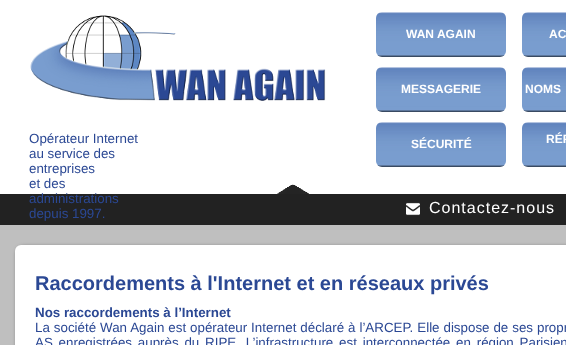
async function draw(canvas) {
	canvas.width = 566;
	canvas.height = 345;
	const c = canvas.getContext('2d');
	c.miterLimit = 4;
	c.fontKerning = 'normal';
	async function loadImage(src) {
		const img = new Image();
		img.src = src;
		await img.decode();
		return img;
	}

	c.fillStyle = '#fff';
	c.fillRect(0, 0, 566, 345);
	c.drawImage(await loadImage('img1.png'), 376, 12, 130, 45);
	c.font = 'bold 12px Liberation Sans';
	c.fillText('WAN AGAIN', 406, 38);
	c.drawImage(await loadImage('img2.png'), 522, 12, 44, 45);
	c.fillText('AC', 549, 38);
	c.drawImage(await loadImage('img1.png'), 376, 67, 130, 45);
	c.fillText('MESSAGERIE', 401, 93);
	c.drawImage(await loadImage('img2.png'), 522, 67, 44, 45);
	c.fillText('NOMS', 525, 93);
	c.drawImage(await loadImage('img3.png'), 30, 15, 296, 86);
	c.font = '13.35px Liberation Sans';
	c.fillStyle = '#2b4894';
	for (const [text, x, y] of [
		['Opérateur Internet', 29, 143],
		['au service des', 29, 158],
		['entreprises', 29, 173],
		['et des', 29, 188],
	]) {
		c.fillText(text, x, y);
	}
	c.fillStyle = '#222';
	c.fillRect(0, 194, 566, 31);
	c.fillStyle = '#2b4894';
	c.fillText('administrations', 29, 203);
	c.fillText('depuis 1997.', 29, 218);
	c.drawImage(await loadImage('img1.png'), 376, 122, 130, 45);
	c.font = 'bold 12px Liberation Sans';
	c.fillStyle = '#fff';
	c.fillText('SÉCURITÉ', 411, 148);
	c.drawImage(await loadImage('img2.png'), 522, 122, 44, 45);
	c.fillText('RÉF', 546, 143);
	c.drawImage(await loadImage('img4.png'), 277, 184, 32, 10);
	c.drawImage(await loadImage('img5.png'), 406, 202, 14, 14);
	c.letterSpacing = '1px';
	c.font = '16px Liberation Sans';
	c.fillText('Contactez-nous', 429, 213);
	c.fillStyle = '#bfbfbf';
	c.fillRect(0, 225, 566, 120);
	c.fillStyle = '#444';
	c.filter = 'blur(2px)';
	c.beginPath();
	c.roundRect(17, 247, 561, 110, 6);
	c.fill();
	c.filter = 'none';
	c.fillStyle = '#fff';
	c.beginPath();
	c.roundRect(15, 245, 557, 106, 6);
	c.fill();
	c.letterSpacing = '0px';
	c.font = 'bold 20px Liberation Sans';
	c.fillStyle = '#2b4894';
	c.fillText('Raccordements à l\'Internet et en réseaux privés', 35, 290);
	c.font = 'bold 13.35px Liberation Sans';
	c.fillText('Nos raccordements à l’Internet', 35, 317);
	c.wordSpacing = '0.25px';
	c.font = '13.35px Liberation Sans';
	c.fillText('La société Wan Again est opérateur Internet déclaré à l’ARCEP. Elle dispose de ses propr', 35, 332);
	c.wordSpacing = '2.1px';
	c.fillText('AS enregistrées auprès du RIPE. L’infrastructure est interconnectée en région Parisien', 35, 347);
}

draw(document.querySelector('canvas'));
